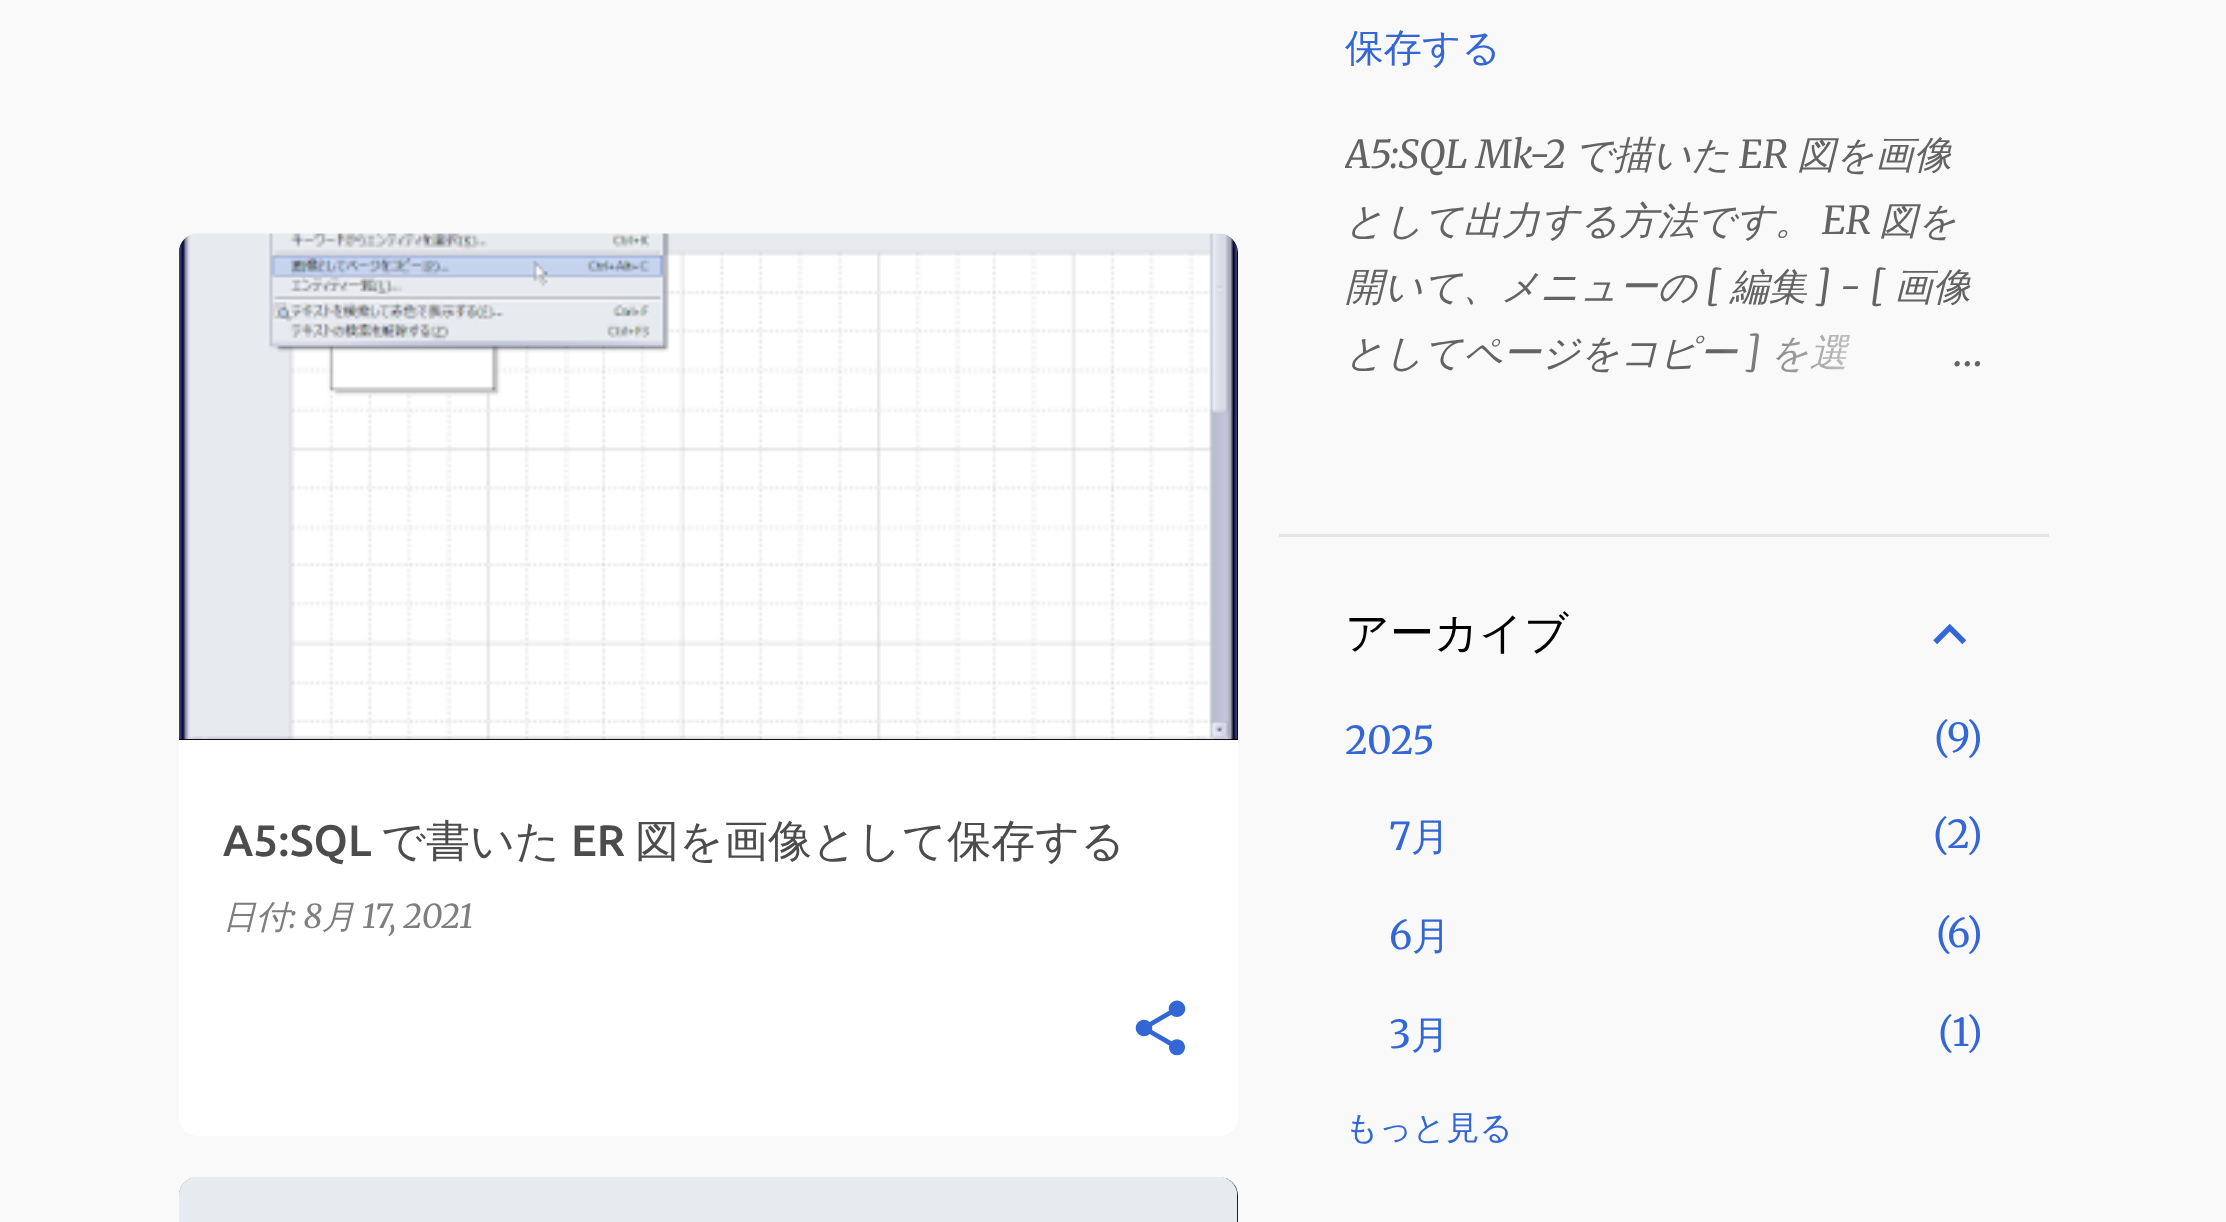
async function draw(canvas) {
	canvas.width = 2226;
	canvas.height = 1222;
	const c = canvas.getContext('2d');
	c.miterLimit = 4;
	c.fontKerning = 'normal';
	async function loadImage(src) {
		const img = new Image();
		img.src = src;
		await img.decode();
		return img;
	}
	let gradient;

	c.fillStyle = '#f9f9f9';
	c.fillRect(0, 0, 2226, 1222);
	c.fillStyle = '#fff';
	c.beginPath();
	c.roundRect(179, 234, 1059, 902, 19);
	c.fill();
	c.fillStyle = '#000';
	c.beginPath();
	c.roundRect(179, 234, 1059, 506, [19, 19, 0, 0]);
	c.fill();
	c.drawImage(await loadImage('img1.png'), 179, 233, 1059, 507);
	c.font = '500 44px Ubuntu';
	c.fillStyle = '#4c4c4c';
	c.fillText('A5:SQL', 223, 856);
	c.font = '500 44px WenQuanYi Zen Hei';
	c.fillText('で書いた', 381, 856);
	c.font = '500 44px Ubuntu';
	c.fillText('ER', 571, 856);
	c.font = '500 44px WenQuanYi Zen Hei';
	c.fillText('図を画像として保存する', 635, 856);
	c.font = 'italic 500 33px WenQuanYi Zen Hei';
	c.fillStyle = '#7e7e7e';
	c.fillText('日付', 223, 928);
	c.font = 'italic 33px Merriweather';
	c.fillText(': 8', 289, 928);
	c.font = 'italic 500 33px WenQuanYi Zen Hei';
	c.fillText('月', 322, 928);
	c.font = 'italic 33px Merriweather';
	c.fillText('17, 2021', 362, 928);
	c.drawImage(await loadImage('img2.png'), 1135, 1000, 51, 56);
	c.fillStyle = '#000';
	c.beginPath();
	c.moveTo(198, 1177);
	c.lineTo(1219, 1177);
	c.bezierCurveTo(1229.5, 1177, 1238, 1185.5, 1238, 1196);
	c.lineTo(1238, 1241);
	c.lineTo(179, 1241);
	c.lineTo(179, 1196);
	c.bezierCurveTo(179, 1185.5, 187.5, 1177, 198, 1177);
	c.closePath();
	c.fill();
	c.drawImage(await loadImage('img3.png'), 179, 1177, 1059, 45);
	c.font = '500 38.5px WenQuanYi Zen Hei';
	c.fillStyle = '#3367d6';
	c.fillText('保存する', 1345, 61);
	c.save();
	c.beginPath();
	c.rect(1345, 121, 638, 264);
	c.clip();
	c.font = 'italic 38.5px Merriweather';
	c.fillStyle = '#636363';
	c.fillText('A5:SQL Mk-2', 1345, 168);
	c.restore();
	c.font = 'italic 500 38.5px WenQuanYi Zen Hei';
	c.fillStyle = '#636363';
	c.fillText('で描いた', 1574, 168);
	c.font = 'italic 38.5px Merriweather';
	c.fillText('ER', 1739, 168);
	c.font = 'italic 500 38.5px WenQuanYi Zen Hei';
	c.fillText('図を画像', 1797, 168);
	c.fillText('として出力する方法です。', 1345, 234);
	c.font = 'italic 38.5px Merriweather';
	c.fillText('ER', 1822, 234);
	c.font = 'italic 500 38.5px WenQuanYi Zen Hei';
	c.fillText('図を', 1879, 234);
	c.fillText('開いて、メニューの', 1345, 300);
	c.font = 'italic 38.5px Merriweather';
	c.fillText('[', 1705, 300);
	c.font = 'italic 500 38.5px WenQuanYi Zen Hei';
	c.fillText('編集', 1730, 300);
	c.font = 'italic 38.5px Merriweather';
	c.fillText('] - [', 1815, 300);
	c.font = 'italic 500 38.5px WenQuanYi Zen Hei';
	c.fillText('画像', 1894, 300);
	c.fillText('としてページをコピー', 1345, 366);
	c.font = 'italic 38.5px Merriweather';
	c.fillText(']', 1745, 366);
	c.font = 'italic 500 38.5px WenQuanYi Zen Hei';
	c.fillText('を選', 1770, 366);
	gradient = c.createLinearGradient(1983, 352, 1719, 352);
	gradient.addColorStop(0, '#f9f9f9');
	gradient.addColorStop(0.2, '#f9f9f9');
	gradient.addColorStop(1, '#f9f9f900');
	c.fillStyle = gradient;
	c.fillRect(1724, 333, 127, 40);
	c.font = '38.5px Merriweather';
	c.fillStyle = '#636363';
	c.fillText('…', 1952, 366);
	c.fillStyle = '#e4e4e4';
	c.fillRect(1279, 534, 770, 3);
	c.font = '500 44px WenQuanYi Zen Hei';
	c.fillStyle = '#000';
	c.fillText('アーカイブ', 1345, 648);
	c.drawImage(await loadImage('img4.png'), 1933, 623, 34, 22);
	c.font = '38.5px Merriweather';
	c.fillStyle = '#3367d6';
	for (const [text, x, y] of [
		['2025', 1345, 754],
		['(', 1934, 751],
		['9', 1947, 751],
		[')', 1966, 751],
		['7', 1389, 850],
	]) {
		c.fillText(text, x, y);
	}
	c.font = '500 38.5px WenQuanYi Zen Hei';
	c.fillText('月', 1411, 850);
	c.font = '38.5px Merriweather';
	for (const [text, x, y] of [
		['(', 1933, 848],
		['2', 1947, 848],
		[')', 1966, 848],
		['6', 1389, 949],
	]) {
		c.fillText(text, x, y);
	}
	c.font = '500 38.5px WenQuanYi Zen Hei';
	c.fillText('月', 1412, 949);
	c.font = '38.5px Merriweather';
	for (const [text, x, y] of [
		['(', 1936, 947],
		['6', 1947, 947],
		[')', 1966, 947],
		['3', 1389, 1048],
	]) {
		c.fillText(text, x, y);
	}
	c.font = '500 38.5px WenQuanYi Zen Hei';
	c.fillText('月', 1411, 1048);
	c.font = '38.5px Merriweather';
	for (const [text, x, y] of [
		['(', 1938, 1046],
		['1', 1952, 1046],
		[')', 1966, 1046],
	]) {
		c.fillText(text, x, y);
	}
	c.font = '500 33px WenQuanYi Zen Hei';
	c.fillText('もっと見る', 1345, 1139);
}

draw(document.querySelector('canvas'));
